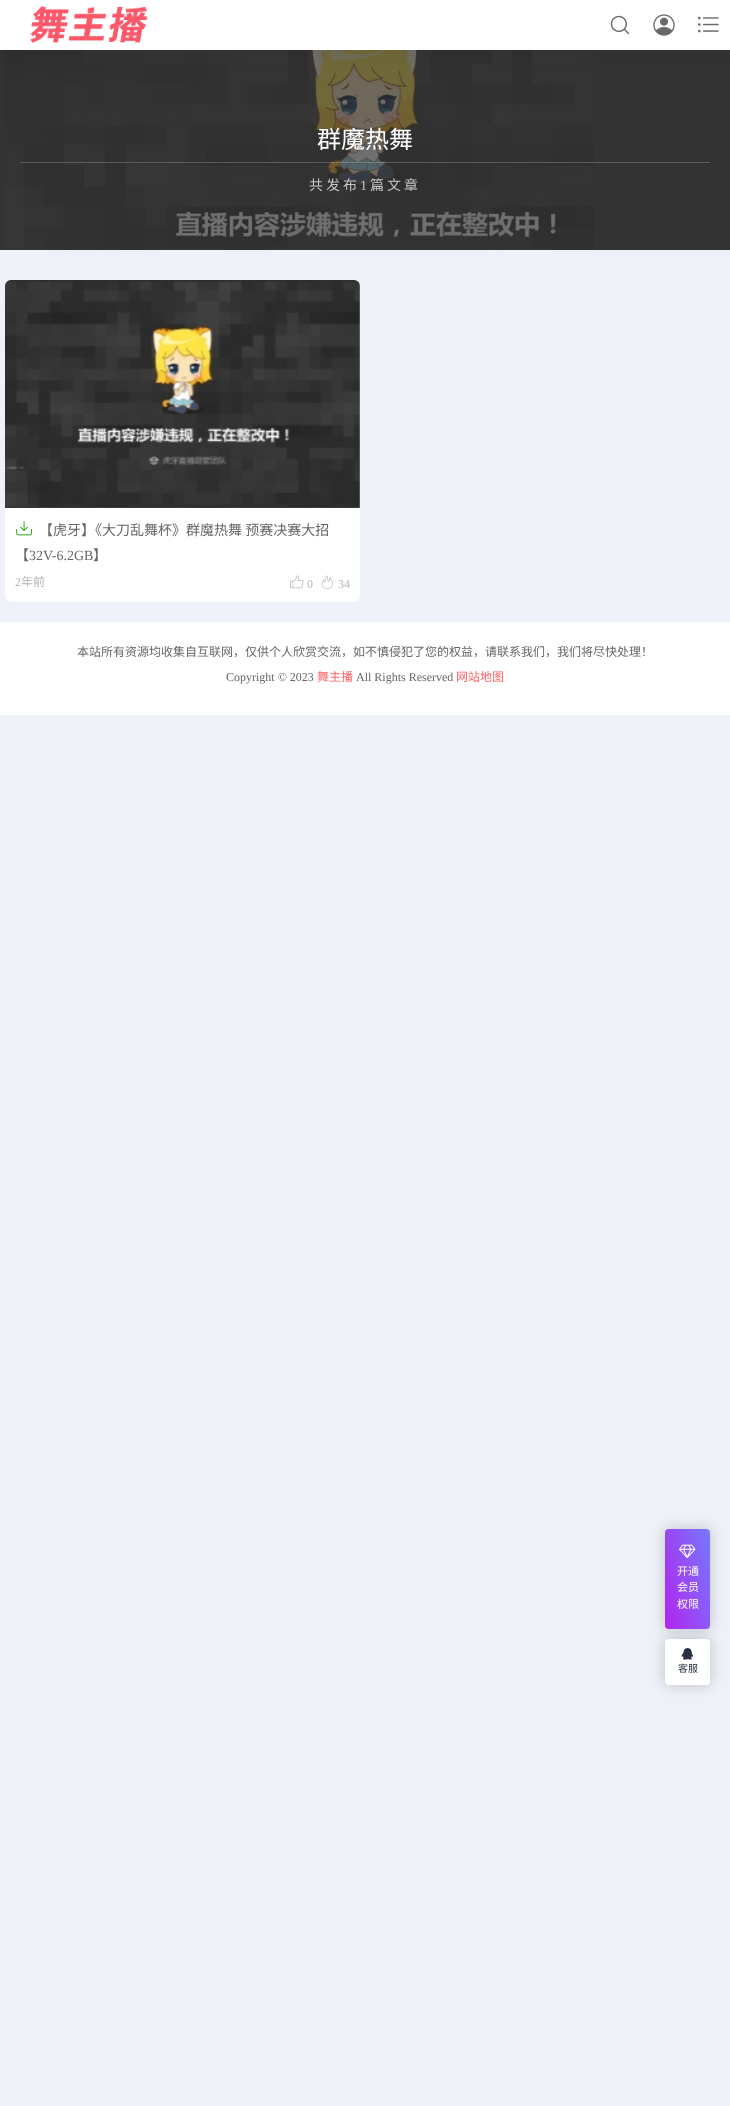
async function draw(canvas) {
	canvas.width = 730;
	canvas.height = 2106;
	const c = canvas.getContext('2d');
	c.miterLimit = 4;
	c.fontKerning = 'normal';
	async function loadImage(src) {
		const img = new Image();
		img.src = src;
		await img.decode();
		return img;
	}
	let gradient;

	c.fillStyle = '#eef1f8';
	c.fillRect(0, 0, 730, 2106);
	c.fillStyle = '#333';
	c.fillRect(0, 50, 730, 200);
	c.drawImage(await loadImage('img5.png'), 4, 50, 590, 200);
	c.fillStyle = '#00000012';
	c.filter = 'blur(10px)';
	c.beginPath();
	c.rect(0, 2, 730, 50);
	c.fill();
	c.filter = 'none';
	c.fillStyle = '#fff';
	c.fillRect(0, 0, 730, 50);
	c.drawImage(await loadImage('img1.png'), 30, 6, 118, 37);
	c.drawImage(await loadImage('img2.png'), 610, 15, 20, 20);
	c.drawImage(await loadImage('img3.png'), 653, 14, 22, 22);
	c.drawImage(await loadImage('img4.png'), 698, 16, 21, 17);
	c.fillStyle = '#ffffff33';
	c.fillRect(20, 162, 690, 1);
	c.font = '24px Noto Sans CJK SC';
	c.fillStyle = '#fff';
	c.fillText('群魔热舞', 317, 148);
	c.letterSpacing = '3px';
	c.font = '14px Noto Sans CJK SC';
	c.fillStyle = '#c5c5c5';
	c.fillText('共发布', 309, 190);
	c.font = '14px Liberation Serif';
	c.fillText('1', 360, 190);
	c.font = '14px Noto Sans CJK SC';
	c.fillText('篇文章', 370, 190);
	c.fillStyle = '#ddd';
	c.beginPath();
	c.roundRect(5, 280, 355, 322, 6);
	c.fill();
	c.drawImage(await loadImage('img6.png'), 5, 280, 355, 228);
	c.fillStyle = '#fff';
	c.beginPath();
	c.roundRect(5, 508, 355, 94, [0, 0, 6, 6]);
	c.fill();
	c.drawImage(await loadImage('img7.png'), 16, 521, 16, 15);
	c.letterSpacing = '0px';
	c.fillStyle = '#666';
	c.fillText('【虎牙】《大刀乱舞杯》群魔热舞 预赛决赛大招', 39, 535);
	c.fillText('【', 15, 560);
	c.font = '14px Liberation Serif';
	c.fillText('32V-6.2GB', 29, 560);
	c.font = '14px Noto Sans CJK SC';
	c.fillText('】', 93, 560);
	c.font = '12px Liberation Serif';
	c.fillStyle = '#b7b7b7';
	c.fillText('2', 15, 586);
	c.font = '12px Noto Sans CJK SC';
	c.fillText('年前', 21, 586);
	c.drawImage(await loadImage('img8.png'), 290, 575, 14, 14);
	c.font = '12px Liberation Serif';
	c.fillText('0', 307, 588);
	c.drawImage(await loadImage('img9.png'), 321, 575, 12, 14);
	c.fillText('34', 338, 588);
	c.fillStyle = '#fff';
	c.fillRect(0, 622, 730, 93);
	c.font = '12px Noto Sans CJK SC';
	c.fillStyle = '#666';
	c.fillText('本站所有资源均收集自互联网，仅供个人欣赏交流，如不慎侵犯了您的权益，请联系我们，我们将尽快处理！', 77, 656);
	c.font = '12px Liberation Serif';
	c.fillText('Copyright © 2023', 226, 681);
	c.font = '12px Noto Sans CJK SC';
	c.fillStyle = '#f66';
	c.fillText('舞主播', 317, 681);
	c.font = '12px Liberation Serif';
	c.fillStyle = '#666';
	c.fillText('All Rights Reserved', 356, 681);
	c.font = '12px Noto Sans CJK SC';
	c.fillStyle = '#f66';
	c.fillText('网站地图', 456, 681);
	c.fillStyle = '#00000033';
	c.filter = 'blur(7px)';
	c.beginPath();
	c.roundRect(665, 1529, 45, 100, 2);
	c.fill();
	c.filter = 'none';
	c.filter = 'blur(7px)';
	c.beginPath();
	c.roundRect(665, 1639, 45, 46, 4);
	c.fill();
	c.filter = 'none';
	gradient = c.createLinearGradient(653, 1589, 722, 1569);
	gradient.addColorStop(0, '#b224ef');
	gradient.addColorStop(1, '#7579ff');
	c.fillStyle = gradient;
	c.beginPath();
	c.roundRect(665, 1529, 45, 100, 4);
	c.fill();
	c.drawImage(await loadImage('img10.png'), 679, 1544, 17, 14);
	c.font = '11px Noto Sans CJK SC';
	c.fillStyle = '#fff';
	for (const [text, x, y] of [
		['开通', 677, 1575],
		['会员', 677, 1591],
		['权限', 677, 1608],
	]) {
		c.fillText(text, x, y);
	}
	c.beginPath();
	c.roundRect(665, 1639, 45, 46, 4);
	c.fill();
	c.drawImage(await loadImage('img11.png'), 681, 1648, 12, 12);
	c.font = '10px Noto Sans CJK SC';
	c.fillStyle = '#293042';
	c.fillText('客服', 678, 1672);
}

draw(document.querySelector('canvas'));
